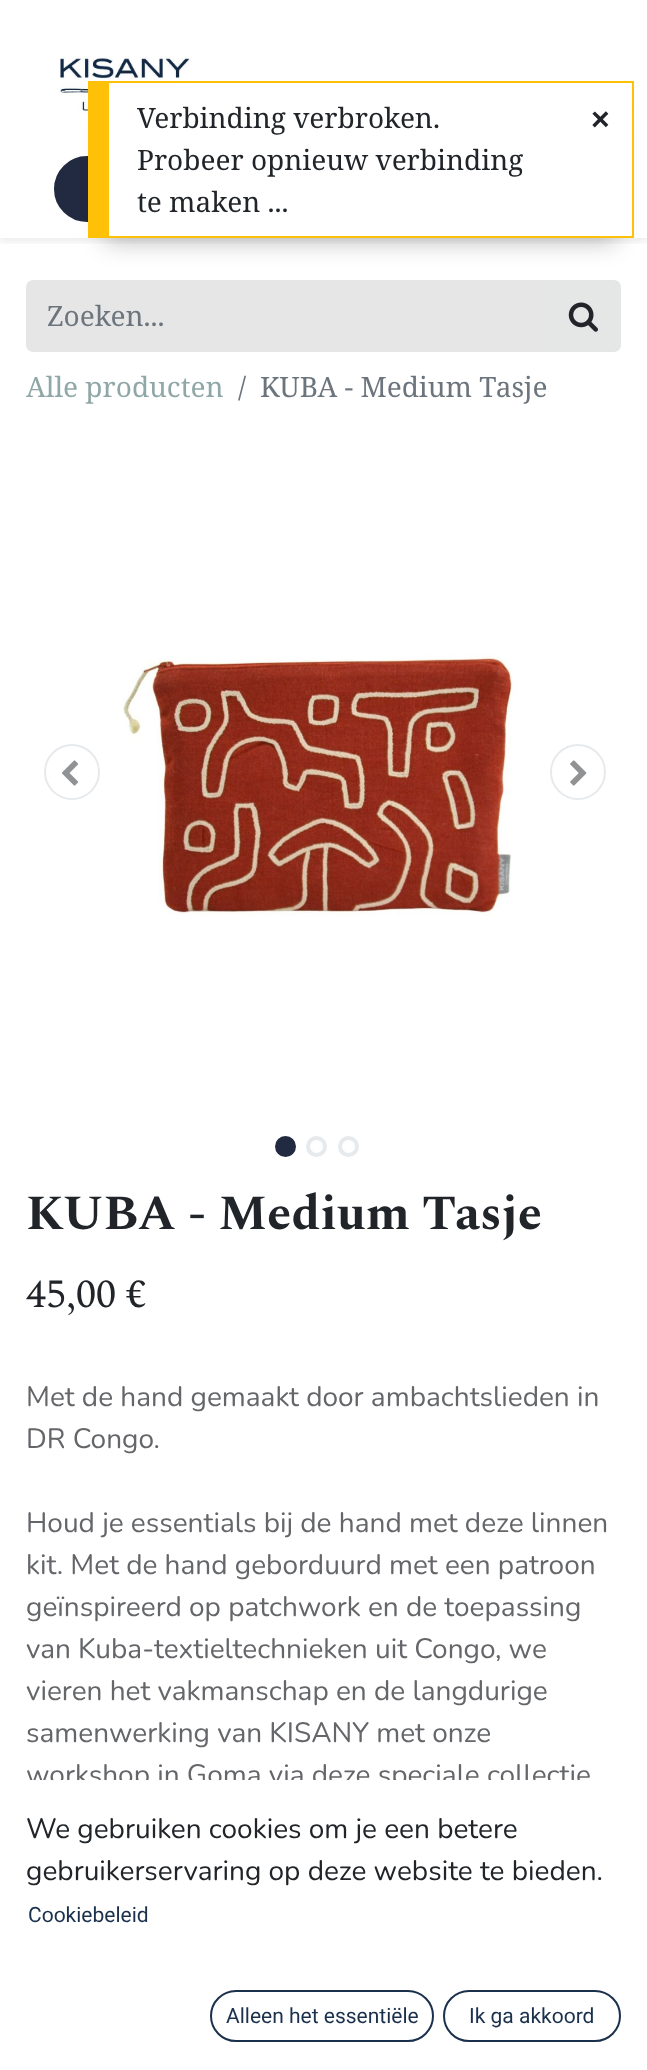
async function draw(canvas) {
	canvas.width = 647;
	canvas.height = 2070;
	const c = canvas.getContext('2d');
	c.miterLimit = 4;
	c.fontKerning = 'normal';
	async function loadImage(src) {
		const img = new Image();
		img.src = src;
		await img.decode();
		return img;
	}

	c.fillStyle = '#fff';
	c.fillRect(0, 0, 647, 2070);
	c.save();
	c.beginPath();
	c.rect(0, 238, 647, 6);
	c.clip();
	c.fillStyle = '#00000012';
	c.filter = 'blur(3.5px)';
	c.beginPath();
	c.rect(0, 4, 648, 238);
	c.fill();
	c.filter = 'none';
	c.restore();
	c.drawImage(await loadImage('img1.png'), 60, 56, 131, 58);
	c.fillStyle = '#212a40';
	c.beginPath();
	c.roundRect(55, 157, 366, 64, 32);
	c.fill();
	c.strokeStyle = '#212a40';
	c.lineWidth = 2;
	c.stroke();
	c.fillStyle = '#00000040';
	c.filter = 'blur(12px)';
	c.beginPath();
	c.rect(105, 119, 511, 123);
	c.fill();
	c.filter = 'none';
	for (const [x, y, w, h, color] of [
		[109, 87, 523, 149, '#fff'],
		[109, 81, 525, 2, '#ffc107'],
		[632, 81, 2, 157, '#ffc107'],
		[109, 236, 525, 2, '#ffc107'],
		[88, 81, 21, 157, '#ffc107'],
	]) {
		c.fillStyle = color;
		c.fillRect(x, y, w, h);
	}
	c.font = '28px Noto Serif';
	c.fillStyle = '#212529';
	for (const [text, x, y] of [
		['Verbinding verbroken.', 137, 128],
		['Probeer opnieuw verbinding', 137, 170],
		['te maken ...', 137, 212],
	]) {
		c.fillText(text, x, y);
	}
	c.font = 'bold 32px Liberation Sans';
	c.fillText('×', 591, 130);
	c.fillStyle = '#e6e6e6';
	c.beginPath();
	c.roundRect(26, 280, 522, 72, [7, 0, 0, 7]);
	c.fill();
	c.font = '28px Noto Serif';
	c.fillStyle = '#6c757d';
	c.fillText('Zoeken...', 47, 326);
	c.fillStyle = '#e5e6e6';
	c.beginPath();
	c.roundRect(547, 281, 73, 70, [0, 6, 6, 0]);
	c.fill();
	c.strokeStyle = '#e5e6e6';
	c.stroke();
	c.drawImage(await loadImage('img2.png'), 568, 302, 30, 30);
	c.fillStyle = '#90a7a7';
	c.fillText('Alle producten', 26, 397);
	c.fillStyle = '#6c757d';
	c.fillText('/', 238, 397);
	c.fillText('KUBA - Medium Tasje', 260, 397);
	c.beginPath();
	c.arc(72, 772, 27, 0, 2 * Math.PI);
	c.strokeStyle = '#e7eaed';
	c.stroke();
	c.drawImage(await loadImage('img3.png'), 62, 760, 16, 26);
	c.drawImage(await loadImage('img4.png'), 122, 653, 397, 263);
	c.beginPath();
	c.arc(578, 772, 27, 0, 2 * Math.PI);
	c.stroke();
	c.drawImage(await loadImage('img5.png'), 570, 760, 17, 26);
	c.fillStyle = '#212a40';
	c.beginPath();
	c.arc(285.5, 1146.5, 8.5, 0, 2 * Math.PI);
	c.fill();
	c.strokeStyle = '#212a40';
	c.lineWidth = 4;
	c.stroke();
	c.beginPath();
	c.arc(316.5, 1146.5, 8.5, 0, 2 * Math.PI);
	c.strokeStyle = '#e7eaed';
	c.stroke();
	c.beginPath();
	c.arc(348.5, 1146.5, 8.5, 0, 2 * Math.PI);
	c.stroke();
	c.font = 'bold 49px Spectral';
	c.fillStyle = '#212529';
	c.fillText('KUBA - Medium Tasje', 26, 1229);
	c.font = '40px Spectral';
	c.fillText('45,00 €', 26, 1307);
	c.font = '200 28px Nunito';
	c.fillStyle = '#646669';
	for (const [text, x, y] of [
		['Met de hand gemaakt door ambachtslieden in', 26, 1406],
		['DR Congo.', 26, 1448],
		['Houd je essentials bij de hand met deze linnen', 26, 1532],
		['kit. Met de hand geborduurd met een patroon', 26, 1574],
		['geïnspireerd op patchwork en de toepassing', 26, 1616],
		['van Kuba-textieltechnieken uit Congo, we', 26, 1658],
		['vieren het vakmanschap en de langdurige', 26, 1700],
		['samenwerking van KISANY met onze', 26, 1742],
		['workshop in Goma via deze speciale collectie', 26, 1784],
	]) {
		c.fillText(text, x, y);
	}
	c.fillStyle = '#fff';
	c.fillRect(30, 1780, 560, 10);
	c.fillStyle = '#212529';
	c.fillText('We gebruiken cookies om je een betere', 26, 1838);
	c.fillText('gebruikerservaring op deze website te bieden.', 26, 1880);
	c.font = '21px Roboto';
	c.fillStyle = '#1a304c';
	c.fillText('Cookiebeleid', 28, 1922);
	c.beginPath();
	c.roundRect(211, 1991, 222, 50, 25);
	c.strokeStyle = '#1a304c';
	c.lineWidth = 2;
	c.stroke();
	c.fillText('Alleen het essentiële', 226, 2023);
	c.beginPath();
	c.roundRect(444, 1991, 176, 50, 25);
	c.stroke();
	c.fillText('Ik ga akkoord', 469, 2023);
}

draw(document.querySelector('canvas'));
